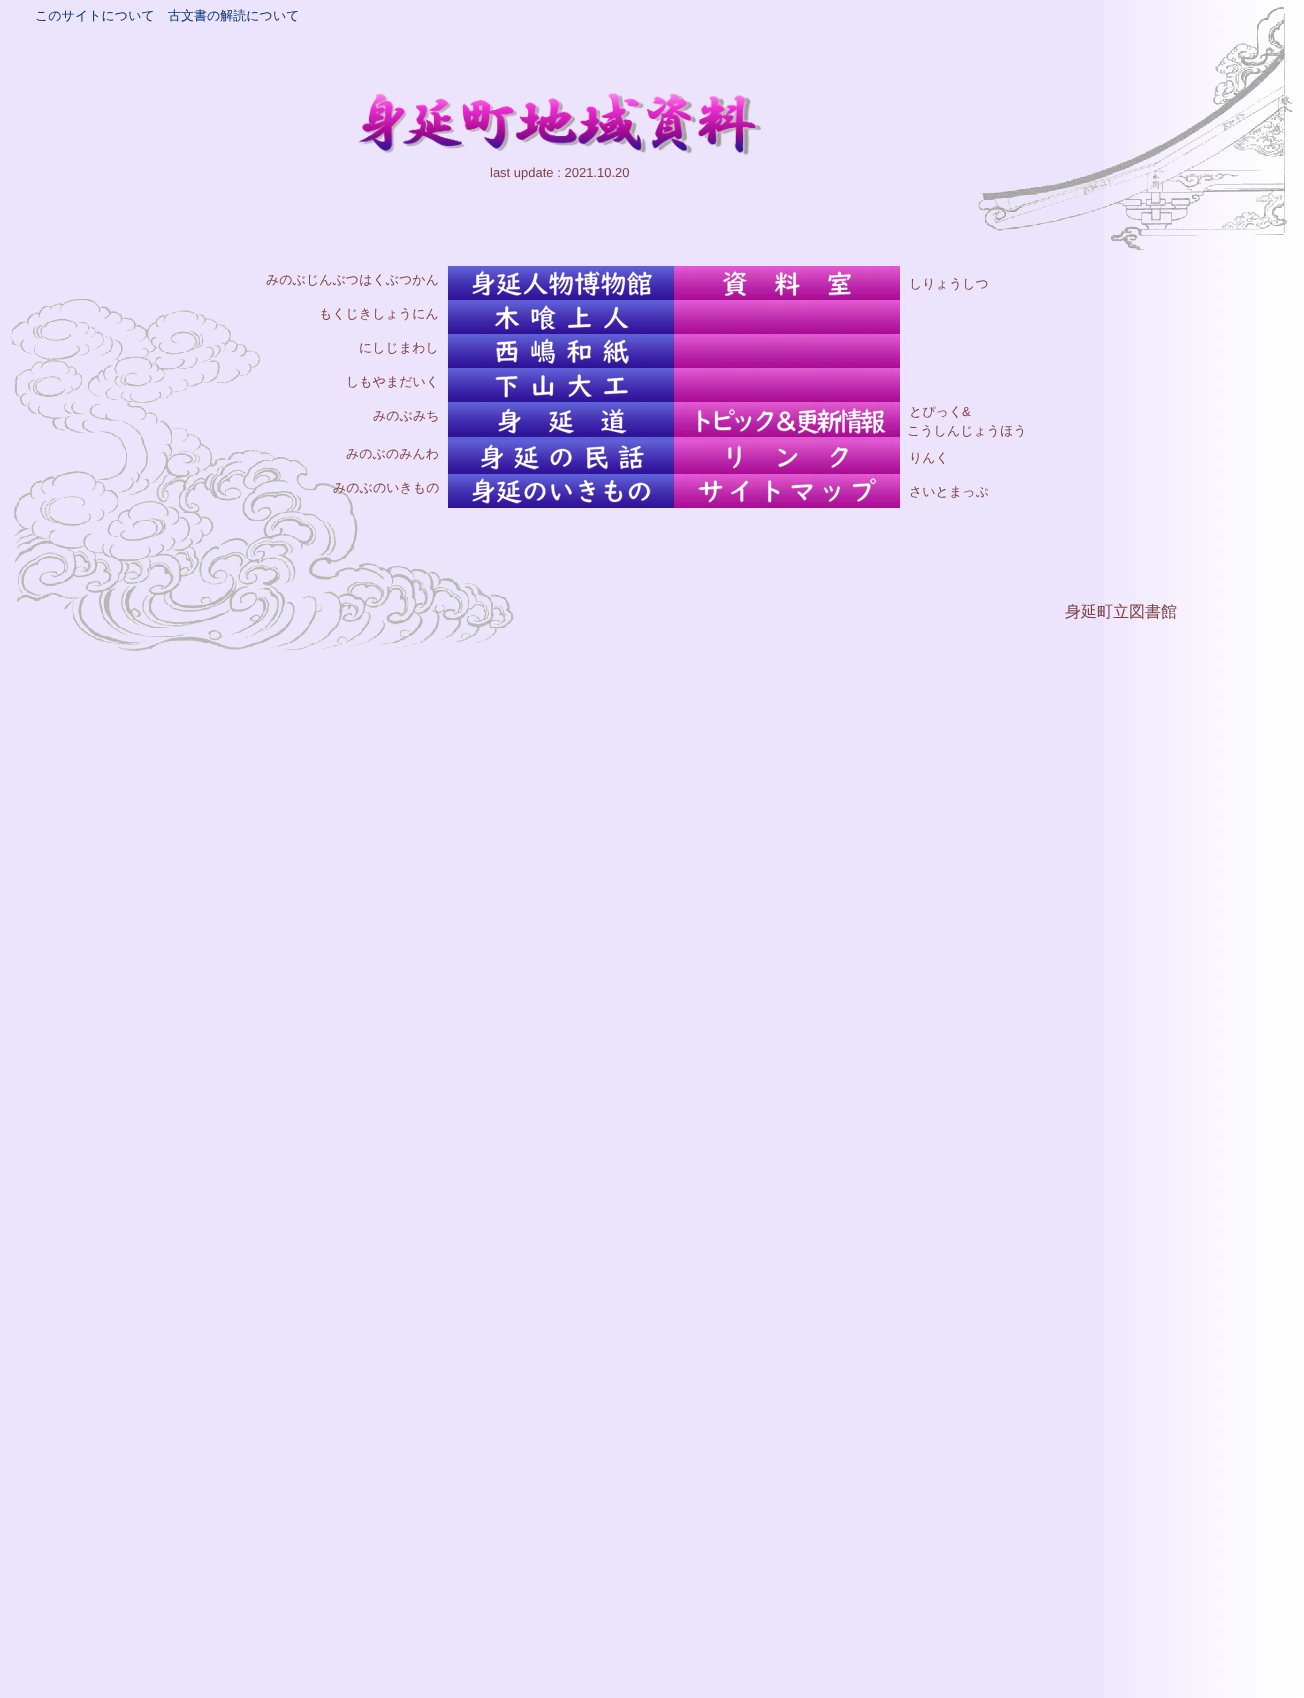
async function draw(canvas) {
	canvas.width = 1304;
	canvas.height = 1698;
	const c = canvas.getContext('2d');
	c.miterLimit = 4;
	c.fontKerning = 'normal';
	async function loadImage(src) {
		const img = new Image();
		img.src = src;
		await img.decode();
		return img;
	}

	c.fillStyle = '#ece4fc';
	c.fillRect(0, 0, 1304, 1698);
	c.drawImage(await loadImage('img1.png'), 1104, 0, 200, 1698);
	c.drawImage(await loadImage('img2.png'), 978, 7, 315, 243);
	c.drawImage(await loadImage('img3.png'), 11, 299, 503, 352);
	c.font = '500 13px WenQuanYi Zen Hei';
	c.fillStyle = '#037';
	c.fillText('このサイトについて', 35, 20);
	c.fillText('古文書の解読について', 168, 20);
	c.drawImage(await loadImage('img4.png'), 358, 92, 403, 63);
	c.font = '13px Liberation Sans';
	c.fillStyle = '#804040';
	c.fillText('last update : 2021.10.20', 490, 177);
	c.font = '500 13px WenQuanYi Zen Hei';
	c.fillText('みのぶじんぶつはくぶつかん', 266, 284);
	c.drawImage(await loadImage('img5.png'), 448, 266, 226, 34);
	c.drawImage(await loadImage('img6.png'), 472, 270, 181, 26);
	c.drawImage(await loadImage('img7.png'), 674, 266, 226, 34);
	c.drawImage(await loadImage('img8.png'), 723, 270, 128, 26);
	c.fillText('しりょうしつ', 909, 288);
	c.fillText('もくじきしょうにん', 319, 318);
	c.drawImage(await loadImage('img5.png'), 448, 300, 226, 34);
	c.drawImage(await loadImage('img9.png'), 494, 305, 135, 25);
	c.drawImage(await loadImage('img7.png'), 674, 300, 226, 34);
	c.fillText('にしじまわし', 359, 352);
	c.drawImage(await loadImage('img5.png'), 448, 334, 226, 34);
	c.drawImage(await loadImage('img10.png'), 496, 338, 133, 26);
	c.drawImage(await loadImage('img7.png'), 674, 334, 226, 34);
	c.fillText('しもやまだいく', 346, 386);
	c.drawImage(await loadImage('img5.png'), 448, 368, 226, 34);
	c.drawImage(await loadImage('img11.png'), 495, 374, 133, 24);
	c.drawImage(await loadImage('img7.png'), 674, 368, 226, 34);
	c.fillText('みのぶみち', 373, 420);
	c.drawImage(await loadImage('img12.png'), 448, 402, 226, 38);
	c.drawImage(await loadImage('img13.png'), 498, 408, 129, 26);
	c.drawImage(await loadImage('img14.png'), 674, 402, 226, 38);
	c.drawImage(await loadImage('img15.png'), 698, 408, 188, 26);
	c.fillText('とぴっく', 909, 416);
	c.font = '13px Liberation Sans';
	c.fillText('&', 962, 416);
	c.font = '500 13px WenQuanYi Zen Hei';
	c.fillText('こうしんじょうほう', 907, 435);
	c.fillText('みのぶのみんわ', 346, 458);
	c.drawImage(await loadImage('img5.png'), 448, 440, 226, 34);
	c.drawImage(await loadImage('img16.png'), 481, 444, 163, 26);
	c.drawImage(await loadImage('img7.png'), 674, 440, 226, 34);
	c.drawImage(await loadImage('img17.png'), 728, 445, 120, 24);
	c.fillText('りんく', 909, 462);
	c.fillText('みのぶのいきもの', 333, 492);
	c.drawImage(await loadImage('img5.png'), 448, 474, 226, 34);
	c.drawImage(await loadImage('img18.png'), 472, 478, 179, 26);
	c.drawImage(await loadImage('img7.png'), 674, 474, 226, 34);
	c.drawImage(await loadImage('img19.png'), 698, 478, 179, 25);
	c.fillText('さいとまっぷ', 909, 496);
	c.font = '500 16px WenQuanYi Zen Hei';
	c.fillText('身延町立図書館', 1065, 617);
}

draw(document.querySelector('canvas'));
